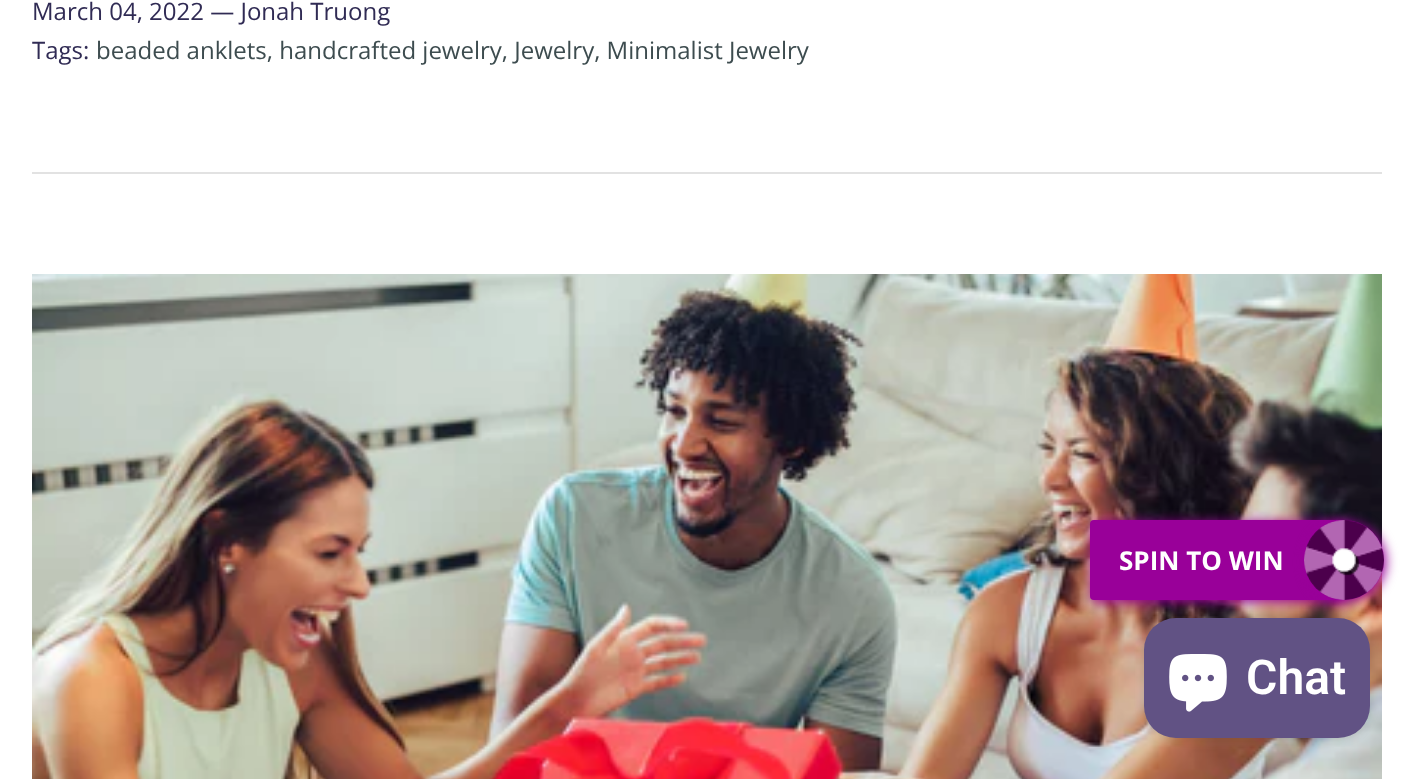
async function draw(canvas) {
	canvas.width = 1413;
	canvas.height = 779;
	const c = canvas.getContext('2d');
	c.miterLimit = 4;
	c.fontKerning = 'normal';
	async function loadImage(src) {
		const img = new Image();
		img.src = src;
		await img.decode();
		return img;
	}

	c.fillStyle = '#fff';
	c.fillRect(0, 0, 1413, 779);
	c.font = '24px Open Sans';
	c.fillStyle = '#302b54';
	c.fillText('March 04, 2022 — Jonah Truong', 32, 20);
	c.fillText('Tags:', 32, 59);
	c.fillStyle = '#3d4c4f';
	c.fillText('beaded anklets, handcrafted jewelry, Jewelry, Minimalist Jewelry', 96, 59);
	c.fillStyle = '#e2e2e2';
	c.fillRect(32, 172, 1350, 2);
	c.drawImage(await loadImage('img1.png'), 32, 274, 1350, 505);
	c.fillStyle = '#909';
	c.filter = 'blur(6px)';
	c.beginPath();
	c.roundRect(1092, 522, 254, 80, 4);
	c.fill();
	c.filter = 'none';
	c.beginPath();
	c.roundRect(1090, 520, 254, 80, 4);
	c.fill();
	c.font = 'bold 26px Open Sans';
	c.fillStyle = '#fff';
	c.fillText('SPIN TO WIN', 1119, 570);
	c.fillStyle = '#909';
	c.filter = 'blur(6px)';
	c.beginPath();
	c.roundRect(1306, 522, 80, 80, 40);
	c.fill();
	c.filter = 'none';
	c.beginPath();
	c.arc(1344, 560, 40, 0, 2 * Math.PI);
	c.fill();
	c.drawImage(await loadImage('img2.png'), 1304, 520, 80, 80);
	c.fillStyle = '#00000026';
	c.filter = 'blur(5px)';
	c.beginPath();
	c.roundRect(1144, 618, 226, 120, 32);
	c.fill();
	c.filter = 'none';
	c.fillStyle = '#615284';
	c.beginPath();
	c.roundRect(1144, 618, 226, 120, 32);
	c.fill();
	c.drawImage(await loadImage('img3.png'), 1169, 654, 58, 58);
	c.font = '600 48px Roboto';
	c.fillStyle = '#fff';
	c.fillText('Chat', 1246, 694);
}

draw(document.querySelector('canvas'));
